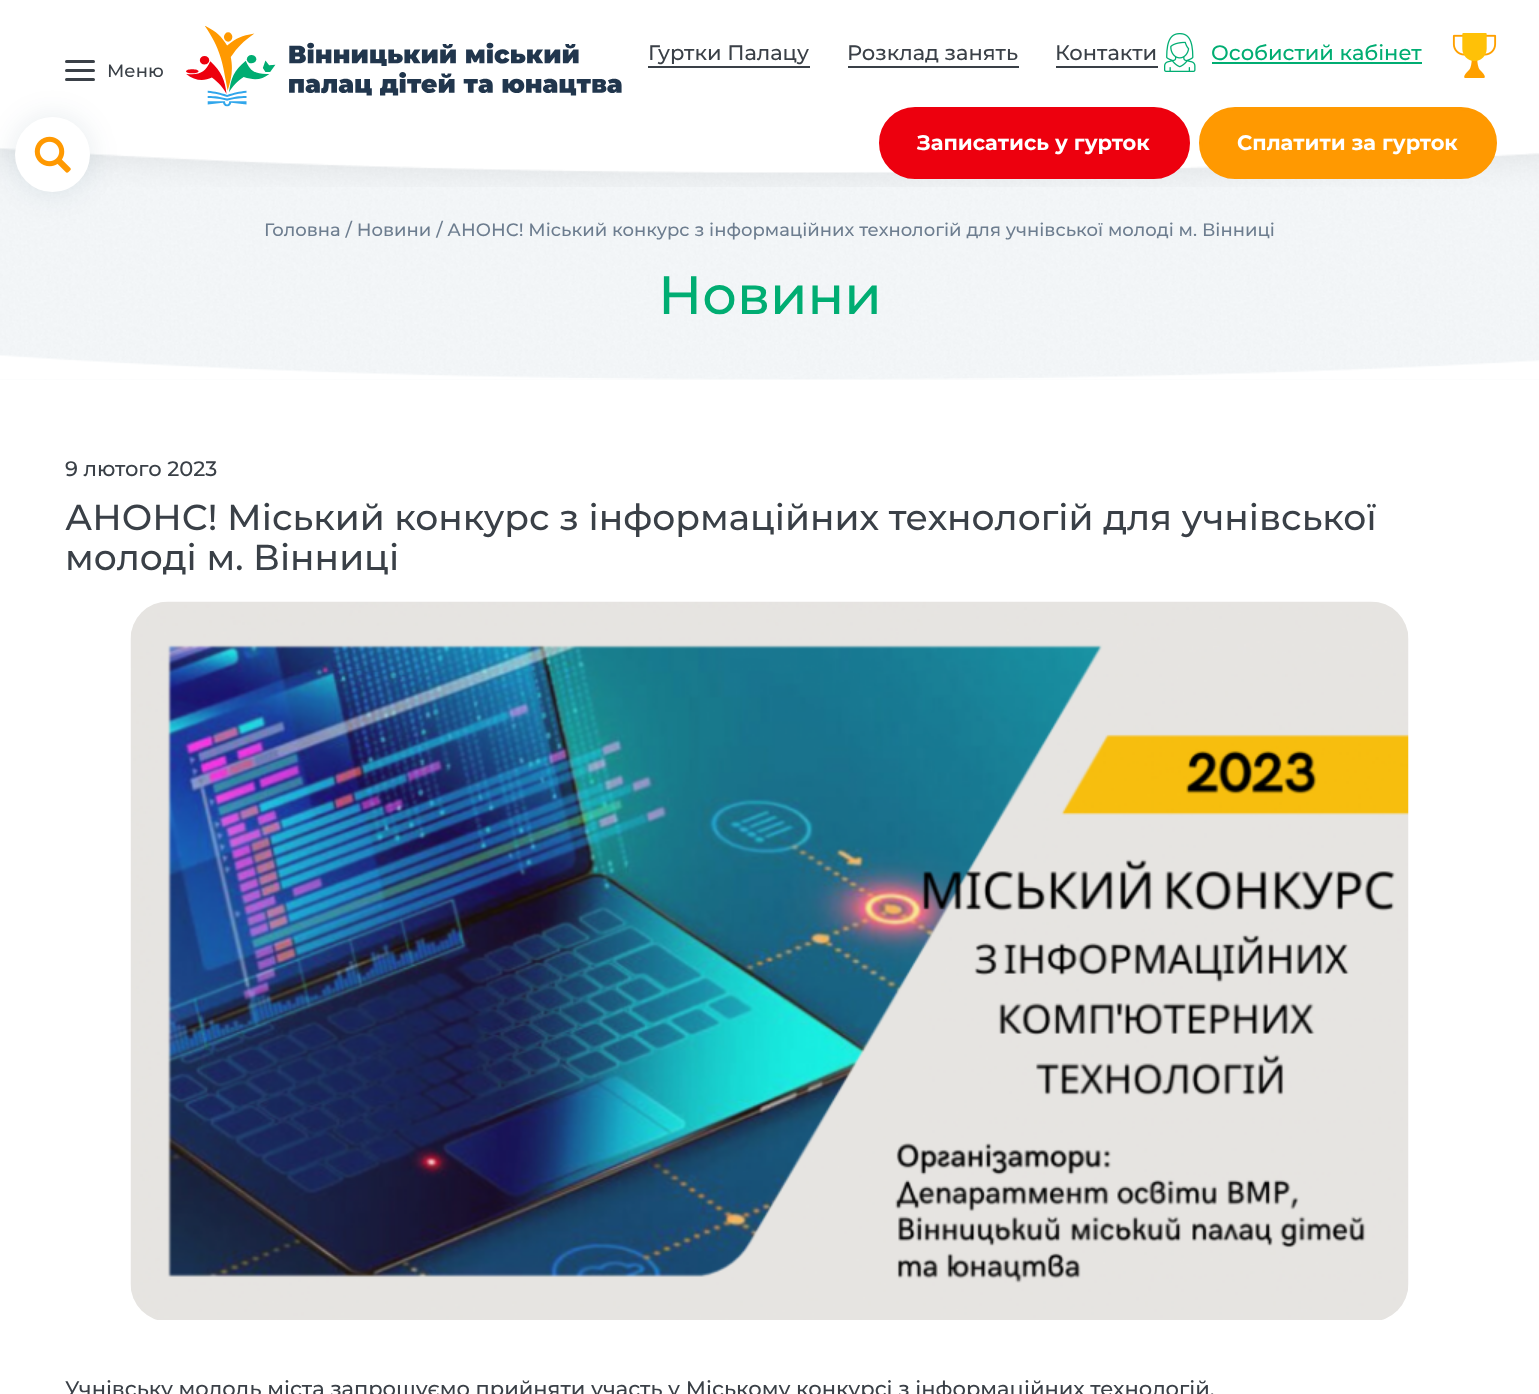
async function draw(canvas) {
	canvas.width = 1539;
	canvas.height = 1394;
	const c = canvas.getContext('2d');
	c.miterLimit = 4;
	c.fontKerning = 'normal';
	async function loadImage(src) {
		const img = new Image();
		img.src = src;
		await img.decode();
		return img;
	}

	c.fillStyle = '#fff';
	c.fillRect(0, 0, 1539, 1394);
	c.drawImage(await loadImage('img6.png'), 0, 146, 1539, 234);
	c.drawImage(await loadImage('img1.png'), 0, 0, 1539, 187);
	c.fillStyle = '#0134521a';
	c.filter = 'blur(15px)';
	c.beginPath();
	c.roundRect(15, 117, 75, 75, 37.5);
	c.fill();
	c.filter = 'none';
	c.fillStyle = '#fff';
	c.beginPath();
	c.arc(52.5, 154.5, 37.5, 0, 2 * Math.PI);
	c.fill();
	c.drawImage(await loadImage('img2.png'), 34, 136, 37, 37);
	c.fillStyle = '#3a4047';
	c.beginPath();
	c.roundRect(65, 60, 30, 3, 1.5);
	c.fill();
	c.beginPath();
	c.roundRect(65, 69, 30, 3, 1.5);
	c.fill();
	c.beginPath();
	c.roundRect(65, 78, 30, 3, 1.5);
	c.fill();
	c.font = '500 18px Montserrat';
	c.fillText('Меню', 107, 77);
	c.drawImage(await loadImage('img3.png'), 186, 26, 436, 81);
	c.font = '500 21px Montserrat';
	c.fillText('Гуртки Палацу', 648, 60);
	c.fillRect(648, 66, 162, 2);
	c.fillText('Розклад занять', 847, 60);
	c.fillRect(848, 66, 171, 2);
	c.fillText('Контакти', 1055, 60);
	c.fillRect(1056, 66, 102, 2);
	c.drawImage(await loadImage('img4.png'), 1164, 33, 32, 39);
	c.fillStyle = '#00ad72';
	c.fillText('Особистий кабінет', 1211, 60);
	c.fillRect(1212, 62, 210, 2);
	c.fillStyle = '#ed000e';
	c.beginPath();
	c.roundRect(880.5, 108.5, 308, 69, 34.5);
	c.fill();
	c.strokeStyle = '#ed000e';
	c.lineWidth = 3;
	c.stroke();
	c.font = 'bold 21px Montserrat';
	c.fillStyle = '#fff';
	c.fillText('Записатись у гурток', 917, 150);
	c.fillStyle = '#ff9901';
	c.beginPath();
	c.roundRect(1200.5, 108.5, 295, 69, 34.5);
	c.fill();
	c.strokeStyle = '#ff9901';
	c.stroke();
	c.fillStyle = '#fff';
	c.fillText('Сплатити за гурток', 1237, 150);
	c.drawImage(await loadImage('img5.png'), 1452, 33, 45, 45);
	c.font = '500 18px Montserrat';
	c.fillStyle = '#6d7d8f';
	c.fillText('Головна / Новини / АНОНС! Міський конкурс з інформаційних технологій для учнівської молоді м. Вінниці', 264, 236);
	c.font = '500 54px Montserrat';
	c.fillStyle = '#00ad72';
	c.fillText('Новини', 658, 314);
	c.drawImage(await loadImage('img7.png'), 0, 355, 1539, 25);
	c.font = '500 21px Montserrat';
	c.fillStyle = '#3a4047';
	c.fillText('9 лютого 2023', 65, 476);
	c.font = '500 36px Montserrat';
	c.fillText('АНОНС! Міський конкурс з інформаційних технологій для учнівської', 65, 530);
	c.fillText('молоді м. Вінниці', 65, 570);
	c.drawImage(await loadImage('img8.png'), 130, 601, 1279, 719);
	c.font = '500 21px Montserrat';
	c.fillText('Учнівську молодь міста запрошуємо прийняти участь у Міському конкурсі з інформаційних технологій.', 65, 1396);
}

draw(document.querySelector('canvas'));
